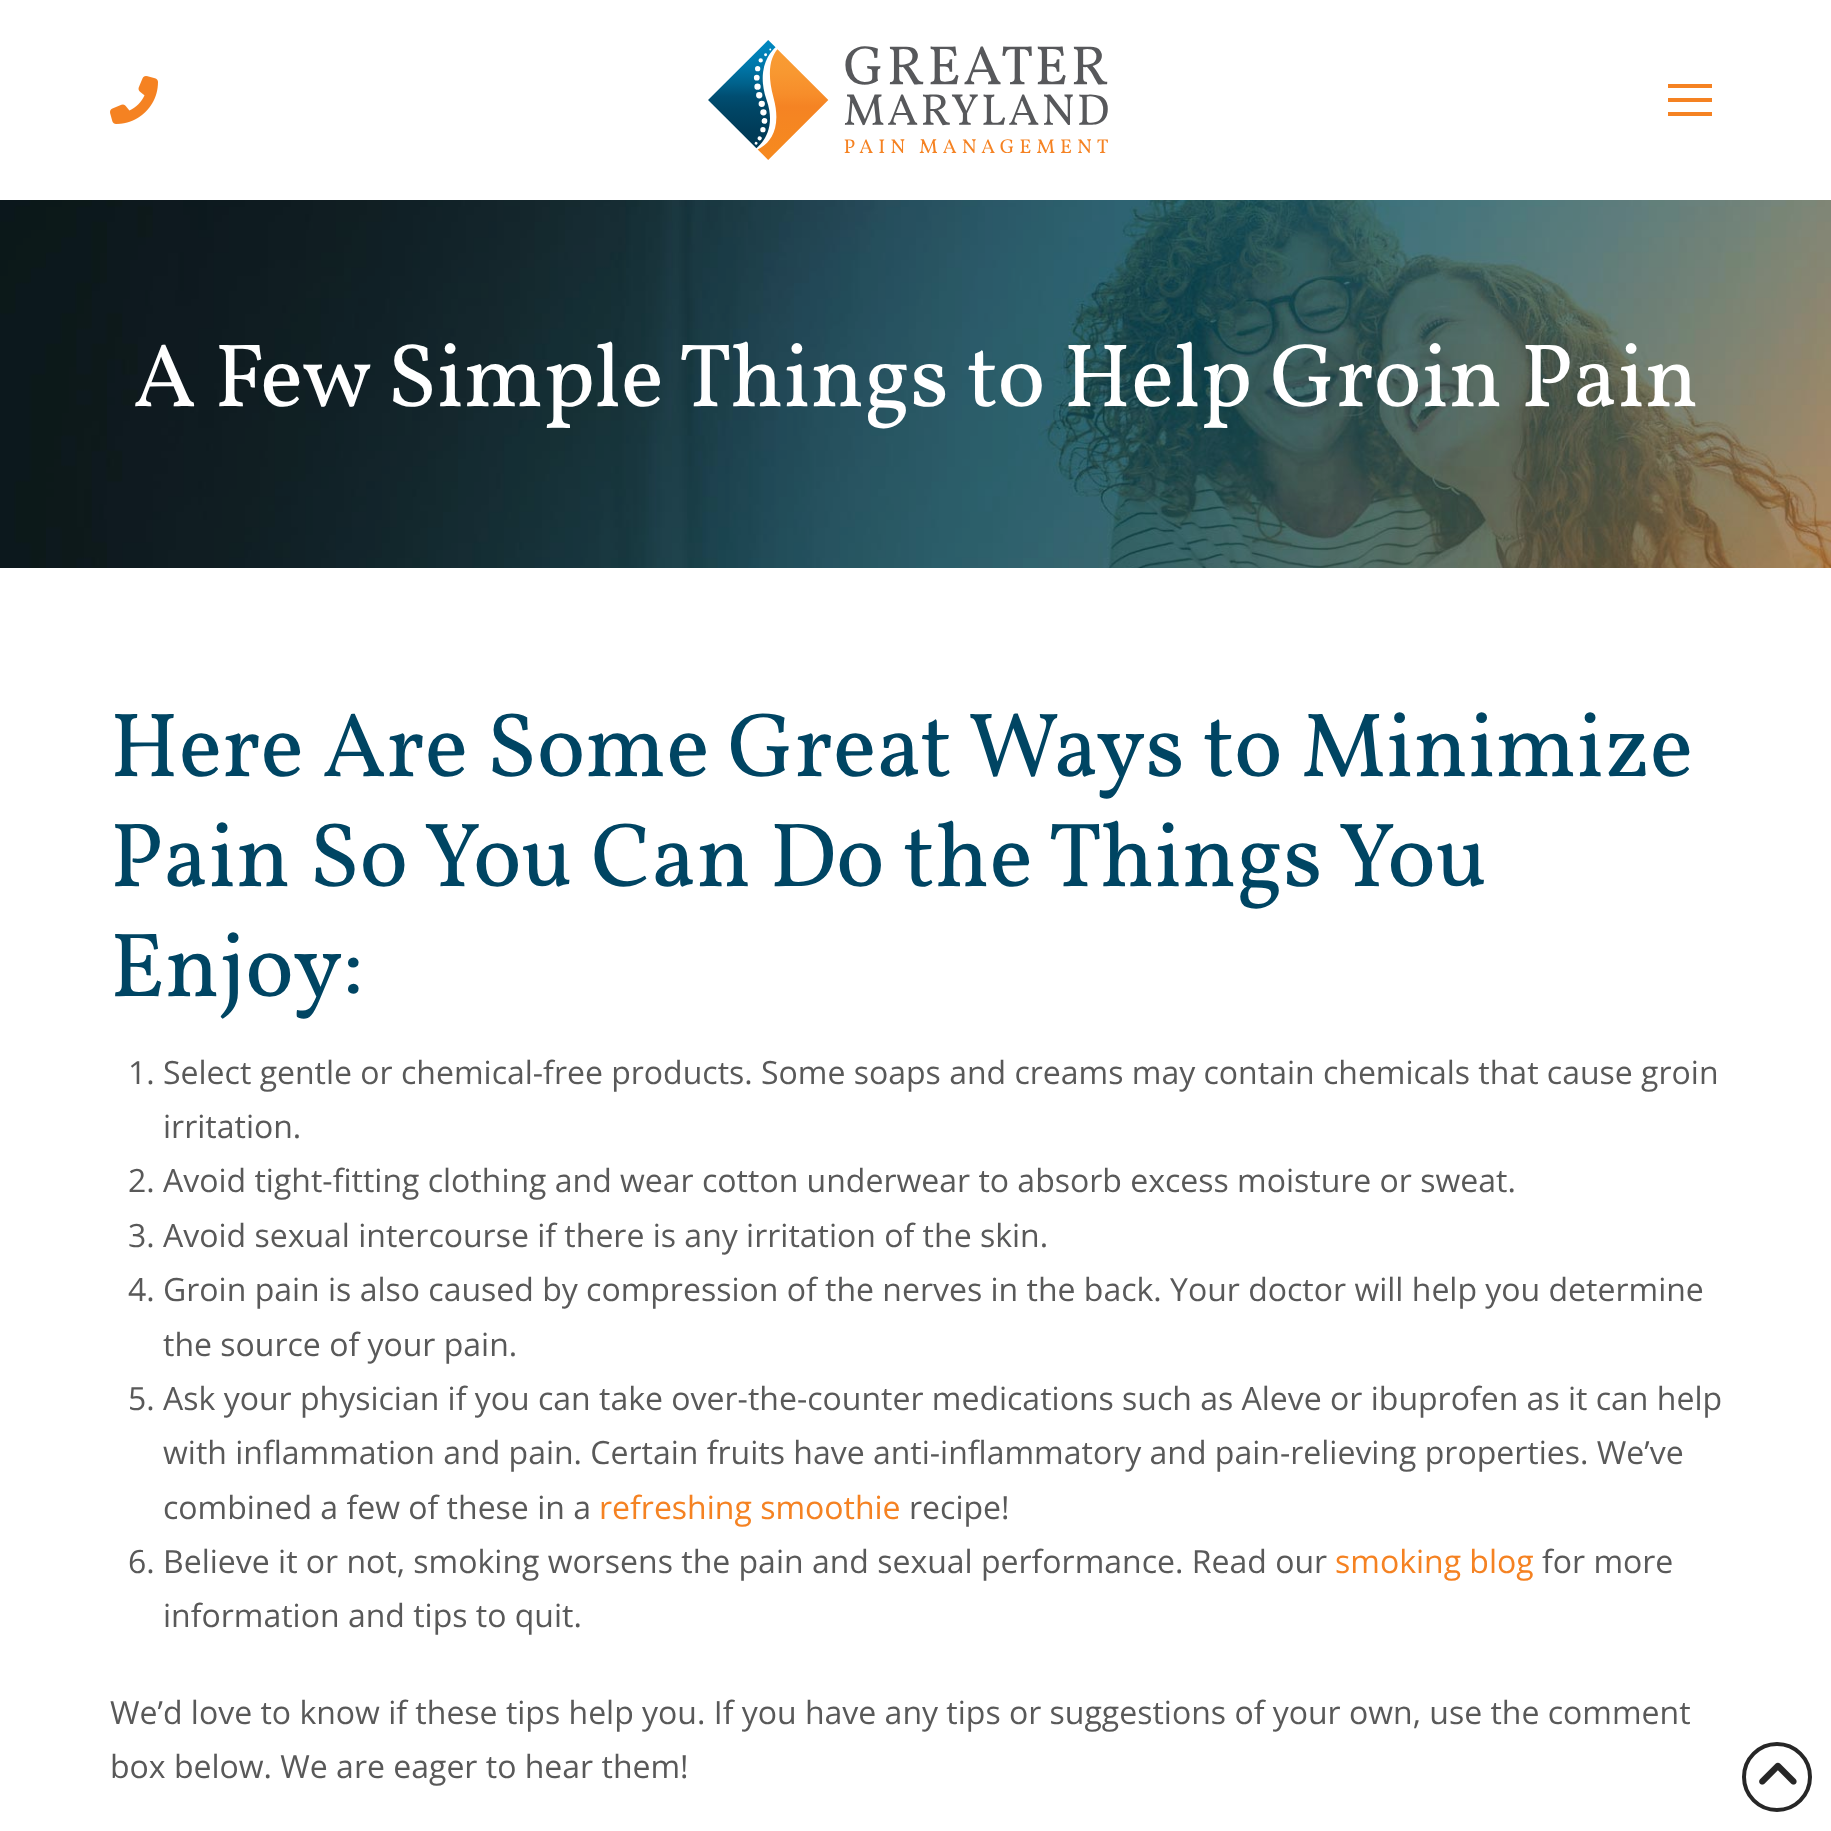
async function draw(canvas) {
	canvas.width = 1831;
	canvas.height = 1831;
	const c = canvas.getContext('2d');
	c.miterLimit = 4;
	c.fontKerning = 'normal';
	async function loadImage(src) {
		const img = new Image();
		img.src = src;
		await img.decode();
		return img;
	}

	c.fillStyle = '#fff';
	c.fillRect(0, 0, 1831, 1831);
	c.drawImage(await loadImage('img1.png'), 110, 76, 48, 48);
	c.drawImage(await loadImage('img2.png'), 708, 40, 400, 120);
	for (const [x, y, w, h, color] of [
		[1668, 84, 44, 4, '#f58222'],
		[1668, 98, 44, 4, '#f58222'],
		[1668, 112, 44, 4, '#f58222'],
	]) {
		c.fillStyle = color;
		c.fillRect(x, y, w, h);
	}
	c.drawImage(await loadImage('img3.png'), 0, 200, 1831, 368);
	c.font = '90px Vollkorn';
	c.fillStyle = '#fff';
	c.fillText('A Few Simple Things to Help Groin Pain', 133, 406);
	c.font = '91.4px Vollkorn';
	c.fillStyle = '#004563';
	for (const [text, x, y] of [
		['Here Are Some Great Ways to Minimize', 110, 776],
		['Pain So You Can Do the Things You', 110, 886],
		['Enjoy:', 110, 996],
	]) {
		c.fillText(text, x, y);
	}
	c.font = '32px Open Sans';
	c.fillStyle = '#595959';
	for (const [text, x, y] of [
		['1. Select gentle or chemical-free products. Some soaps and creams may contain chemicals that cause groin', 128, 1084],
		['irritation.', 163, 1138],
		['2. Avoid tight-fitting clothing and wear cotton underwear to absorb excess moisture or sweat.', 128, 1192],
		['3. Avoid sexual intercourse if there is any irritation of the skin.', 128, 1247],
		['4. Groin pain is also caused by compression of the nerves in the back. Your doctor will help you determine', 128, 1301],
		['the source of your pain.', 163, 1356],
		['5. Ask your physician if you can take over-the-counter medications such as Aleve or ibuprofen as it can help', 128, 1410],
		['with inflammation and pain. Certain fruits have anti-inflammatory and pain-relieving properties. We’ve', 163, 1464],
		['combined a few of these in a', 163, 1519],
	]) {
		c.fillText(text, x, y);
	}
	c.fillStyle = '#f58222';
	c.fillText('refreshing smoothie', 599, 1519);
	c.fillStyle = '#595959';
	c.fillText('recipe!', 909, 1519);
	c.fillText('6. Believe it or not, smoking worsens the pain and sexual performance. Read our', 128, 1573);
	c.fillStyle = '#f58222';
	c.fillText('smoking blog', 1335, 1573);
	c.fillStyle = '#595959';
	for (const [text, x, y] of [
		['for more', 1542, 1573],
		['information and tips to quit.', 163, 1627],
		['We’d love to know if these tips help you. If you have any tips or suggestions of your own, use the comment', 110, 1724],
		['box below. We are eager to hear them!', 110, 1778],
	]) {
		c.fillText(text, x, y);
	}
	c.beginPath();
	c.arc(1777, 1777, 33, 0, 2 * Math.PI);
	c.strokeStyle = '#272727';
	c.lineWidth = 4;
	c.stroke();
	c.drawImage(await loadImage('img4.png'), 1759, 1762, 38, 23);
}

draw(document.querySelector('canvas'));
